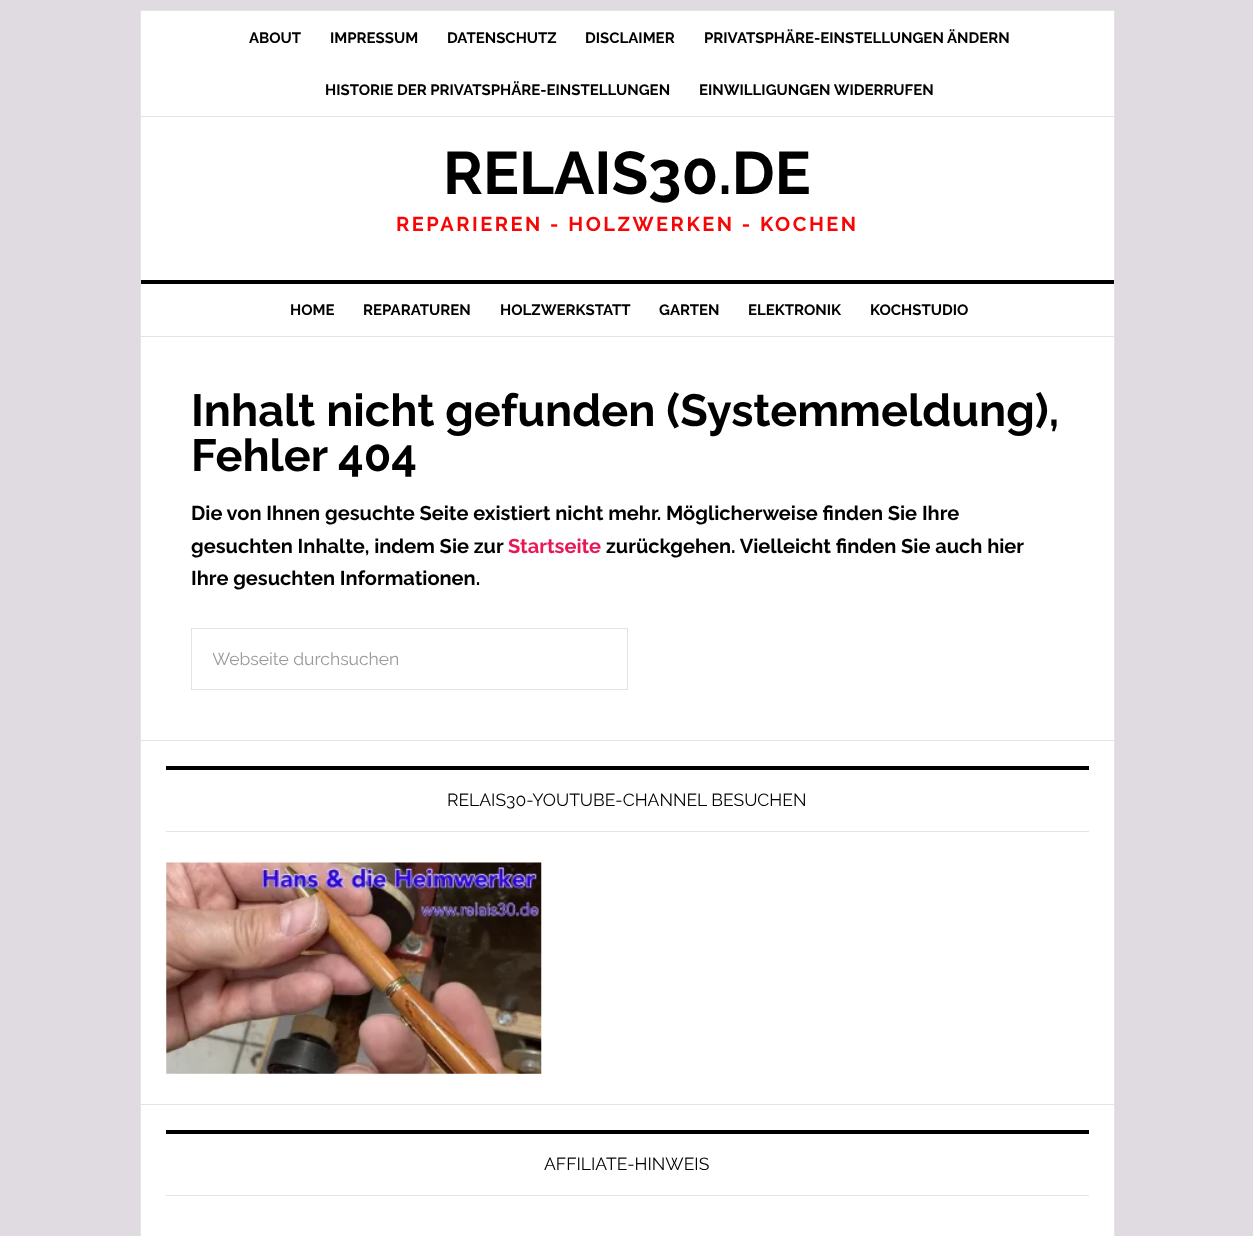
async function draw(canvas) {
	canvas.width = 1253;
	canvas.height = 1236;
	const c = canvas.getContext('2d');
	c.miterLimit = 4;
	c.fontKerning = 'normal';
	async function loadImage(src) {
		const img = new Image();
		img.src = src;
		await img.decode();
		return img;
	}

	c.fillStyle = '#e0dbe0';
	c.fillRect(0, 0, 1253, 1236);
	c.fillStyle = '#fff';
	c.beginPath();
	c.rect(140.5, 10.5, 974, 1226);
	c.fill();
	c.strokeStyle = '#e3e3e3';
	c.stroke();
	c.fillStyle = '#e3e3e3';
	c.fillRect(141, 116, 973, 1);
	c.font = 'bold 15px Raleway';
	c.fillStyle = '#000';
	for (const [text, x, y] of [
		['ABOUT', 249, 43],
		['IMPRESSUM', 330, 43],
		['DATENSCHUTZ', 447, 43],
		['DISCLAIMER', 585, 43],
		['PRIVATSPHÄRE-EINSTELLUNGEN ÄNDERN', 704, 43],
		['HISTORIE DER PRIVATSPHÄRE-EINSTELLUNGEN', 325, 95],
		['EINWILLIGUNGEN WIDERRUFEN', 699, 95],
	]) {
		c.fillText(text, x, y);
	}
	c.fillRect(141, 280, 973, 4);
	c.font = 'bold 60px Raleway';
	c.fillText('RELAIS30.DE', 443, 194);
	c.letterSpacing = '2.5px';
	c.font = 'bold 20px Raleway';
	c.fillStyle = '#f70605';
	c.fillText('REPARIEREN - HOLZWERKEN - KOCHEN', 396, 231);
	c.fillStyle = '#e3e3e3';
	c.fillRect(141, 336, 973, 1);
	c.letterSpacing = '0px';
	c.font = 'bold 15px Raleway';
	c.fillStyle = '#000';
	for (const [text, x, y] of [
		['HOME', 290, 315],
		['REPARATUREN', 363, 315],
		['HOLZWERKSTATT', 500, 315],
		['GARTEN', 659, 315],
		['ELEKTRONIK', 748, 315],
		['KOCHSTUDIO', 870, 315],
	]) {
		c.fillText(text, x, y);
	}
	c.fillStyle = '#e3e3e3';
	c.fillRect(141, 740, 973, 1);
	c.font = 'bold 45px Raleway';
	c.fillStyle = '#000';
	c.fillText('Inhalt nicht gefunden (Systemmeldung),', 191, 426);
	c.fillText('Fehler 404', 191, 471);
	c.font = 'bold 20px Raleway';
	c.fillText('Die von Ihnen gesuchte Seite existiert nicht mehr. Möglicherweise finden Sie Ihre', 191, 520);
	c.fillText('gesuchten Inhalte, indem Sie zur', 191, 553);
	c.fillStyle = '#e81857';
	c.fillText('Startseite', 508, 553);
	c.fillStyle = '#000';
	c.fillText('zurückgehen. Vielleicht finden Sie auch hier', 606, 553);
	c.fillText('Ihre gesuchten Informationen.', 191, 585);
	c.strokeRect(191.5, 628.5, 436, 61);
	c.save();
	c.beginPath();
	c.rect(213, 649, 393, 20);
	c.clip();
	c.font = '17.5px Raleway';
	c.fillStyle = '#999';
	c.fillText('Webseite durchsuchen', 212, 665);
	c.restore();
	for (const [x, y, w, h, color] of [
		[141, 1104, 973, 1, '#e3e3e3'],
		[166, 766, 923, 4, '#000'],
		[166, 831, 923, 1, '#e3e3e3'],
	]) {
		c.fillStyle = color;
		c.fillRect(x, y, w, h);
	}
	c.font = '17.5px Raleway';
	c.fillStyle = '#000';
	c.fillText('RELAIS30-YOUTUBE-CHANNEL BESUCHEN', 447, 806);
	c.drawImage(await loadImage('img1.png'), 166, 862, 376, 212);
	c.fillRect(166, 1130, 923, 4);
	c.fillStyle = '#e3e3e3';
	c.fillRect(166, 1195, 923, 1);
	c.fillStyle = '#000';
	c.fillText('AFFILIATE-HINWEIS', 544, 1170);
}

draw(document.querySelector('canvas'));
